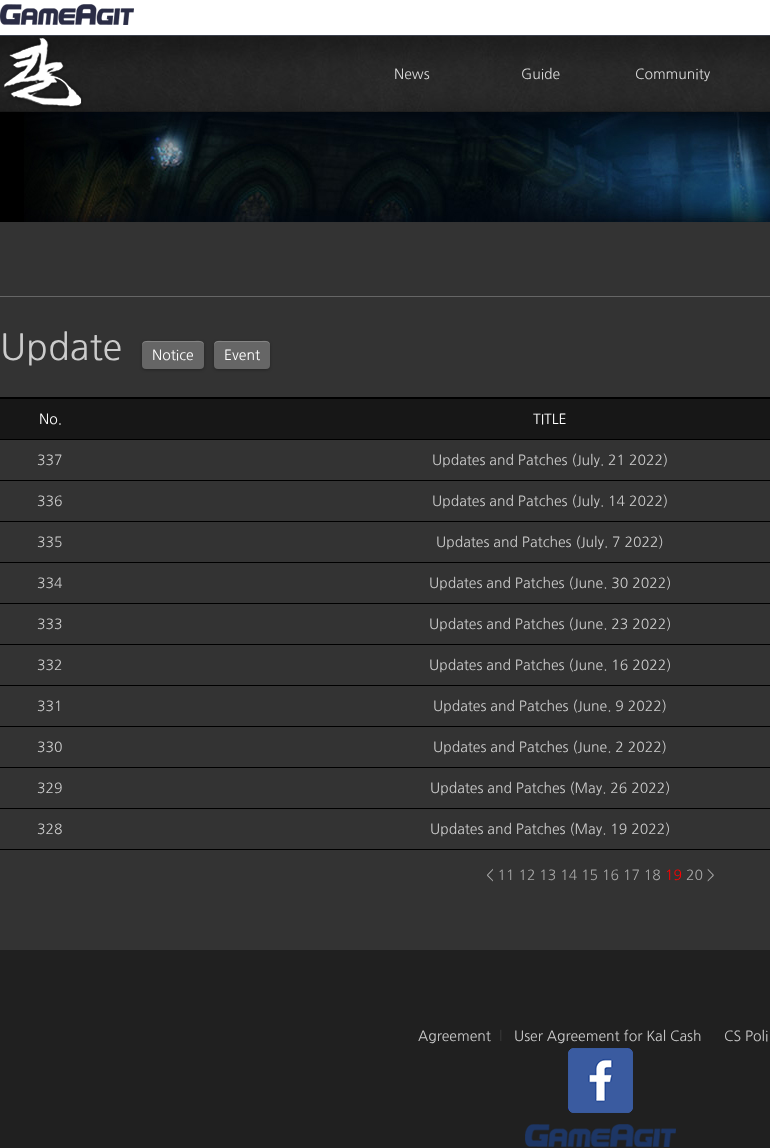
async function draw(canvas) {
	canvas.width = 770;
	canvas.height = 1148;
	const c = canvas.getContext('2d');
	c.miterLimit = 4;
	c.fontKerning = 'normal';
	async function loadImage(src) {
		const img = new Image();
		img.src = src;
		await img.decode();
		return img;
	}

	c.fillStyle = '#333';
	c.fillRect(0, 0, 770, 1148);
	c.fillStyle = '#fff';
	c.fillRect(0, 0, 770, 35);
	c.fillStyle = '#3a3f4c';
	c.fillRect(0, 35, 770, 1);
	c.drawImage(await loadImage('img1.png'), 0, 4, 134, 21);
	c.drawImage(await loadImage('img2.png'), 0, 36, 770, 76);
	c.drawImage(await loadImage('img3.png'), 4, 38, 79, 70);
	c.font = '14px NanumGothic';
	c.fillStyle = '#dadada';
	for (const [text, x, y] of [
		['News', 394, 79],
		['Guide', 521, 79],
		['Community', 635, 79],
	]) {
		c.fillText(text, x, y);
	}
	c.fillStyle = '#000';
	c.fillRect(0, 112, 24, 110);
	c.drawImage(await loadImage('img4.png'), 24, 112, 746, 110);
	c.fillStyle = '#666';
	c.fillRect(0, 296, 770, 1);
	c.font = '36px NanumGothic';
	c.fillStyle = '#ccc';
	c.fillText('Update', 0, 360);
	c.fillStyle = '#0000004d';
	c.filter = 'blur(1.5px)';
	c.beginPath();
	c.roundRect(142, 342, 62, 28, 4);
	c.fill();
	c.filter = 'none';
	c.fillStyle = '#666';
	c.beginPath();
	c.roundRect(142, 341, 62, 28, 4);
	c.fill();
	c.fillStyle = '#ffffff33';
	c.beginPath();
	c.moveTo(146, 342);
	c.lineTo(200, 342);
	c.bezierCurveTo(202, 342, 204, 344, 204, 346);
	c.bezierCurveTo(204, 339, 196, 341, 191, 341);
	c.lineTo(155, 341);
	c.bezierCurveTo(150, 341, 142, 339, 142, 346);
	c.bezierCurveTo(142, 344, 144, 342, 146, 342);
	c.closePath();
	c.fill();
	c.font = '14px NanumGothic';
	c.fillStyle = '#fff';
	c.fillText('Notice', 152, 360);
	c.fillStyle = '#0000004d';
	c.filter = 'blur(1.5px)';
	c.beginPath();
	c.roundRect(214, 342, 56, 28, 4);
	c.fill();
	c.filter = 'none';
	c.fillStyle = '#666';
	c.beginPath();
	c.roundRect(214, 341, 56, 28, 4);
	c.fill();
	c.fillStyle = '#ffffff33';
	c.beginPath();
	c.moveTo(218, 342);
	c.lineTo(266, 342);
	c.bezierCurveTo(268, 342, 270, 344, 270, 346);
	c.bezierCurveTo(270, 339, 263, 341, 258, 341);
	c.lineTo(226, 341);
	c.bezierCurveTo(221, 341, 214, 339, 214, 346);
	c.bezierCurveTo(214, 344, 216, 342, 218, 342);
	c.closePath();
	c.fill();
	c.fillStyle = '#fff';
	c.fillText('Event', 224, 360);
	for (const [x, y, w, h, color] of [
		[0, 397, 770, 2, '#000'],
		[0, 399, 770, 40, '#171717'],
		[0, 439, 770, 1, '#000'],
	]) {
		c.fillStyle = color;
		c.fillRect(x, y, w, h);
	}
	c.fillStyle = '#fff';
	c.fillText('No.', 39, 424);
	c.fillText('TITLE', 533, 424);
	c.fillStyle = '#000';
	c.fillRect(0, 480, 770, 1);
	c.fillStyle = '#ccc';
	c.fillText('337', 37, 465);
	c.fillText('Updates and Patches (July. 21 2022)', 432, 465);
	c.fillStyle = '#000';
	c.fillRect(0, 521, 770, 1);
	c.fillStyle = '#ccc';
	c.fillText('336', 37, 506);
	c.fillText('Updates and Patches (July. 14 2022)', 432, 506);
	c.fillStyle = '#000';
	c.fillRect(0, 562, 770, 1);
	c.fillStyle = '#ccc';
	c.fillText('335', 37, 547);
	c.fillText('Updates and Patches (July. 7 2022)', 436, 547);
	c.fillStyle = '#000';
	c.fillRect(0, 603, 770, 1);
	c.fillStyle = '#ccc';
	c.fillText('334', 37, 588);
	c.fillText('Updates and Patches (June. 30 2022)', 429, 588);
	c.fillStyle = '#000';
	c.fillRect(0, 644, 770, 1);
	c.fillStyle = '#ccc';
	c.fillText('333', 37, 629);
	c.fillText('Updates and Patches (June. 23 2022)', 429, 629);
	c.fillStyle = '#000';
	c.fillRect(0, 685, 770, 1);
	c.fillStyle = '#ccc';
	c.fillText('332', 37, 670);
	c.fillText('Updates and Patches (June. 16 2022)', 429, 670);
	c.fillStyle = '#000';
	c.fillRect(0, 726, 770, 1);
	c.fillStyle = '#ccc';
	c.fillText('331', 37, 711);
	c.fillText('Updates and Patches (June. 9 2022)', 433, 711);
	c.fillStyle = '#000';
	c.fillRect(0, 767, 770, 1);
	c.fillStyle = '#ccc';
	c.fillText('330', 37, 752);
	c.fillText('Updates and Patches (June. 2 2022)', 433, 752);
	c.fillStyle = '#000';
	c.fillRect(0, 808, 770, 1);
	c.fillStyle = '#ccc';
	c.fillText('329', 37, 793);
	c.fillText('Updates and Patches (May. 26 2022)', 430, 793);
	c.fillStyle = '#000';
	c.fillRect(0, 849, 770, 1);
	c.fillStyle = '#ccc';
	c.fillText('328', 37, 834);
	c.fillText('Updates and Patches (May. 19 2022)', 430, 834);
	c.fillStyle = '#a8a8a8';
	c.fillText('< 11 12 13 14 15 16 17 18', 486, 880);
	c.fillStyle = '#f00';
	c.fillText('19', 665, 880);
	c.fillStyle = '#a8a8a8';
	c.fillText('20 >', 686, 880);
	c.fillStyle = '#202020';
	c.fillRect(0, 950, 770, 198);
	c.fillStyle = '#ccc';
	c.fillText('Agreement', 418, 1041);
	c.fillStyle = '#393939';
	c.fillText('l', 499, 1041);
	c.fillStyle = '#ccc';
	c.fillText('User Agreement for Kal Cash', 514, 1041);
	c.fillText('CS Poli', 724, 1041);
	c.drawImage(await loadImage('img5.png'), 568, 1048, 65, 65);
	c.drawImage(await loadImage('img6.png'), 525, 1124, 151, 23);
}

draw(document.querySelector('canvas'));
